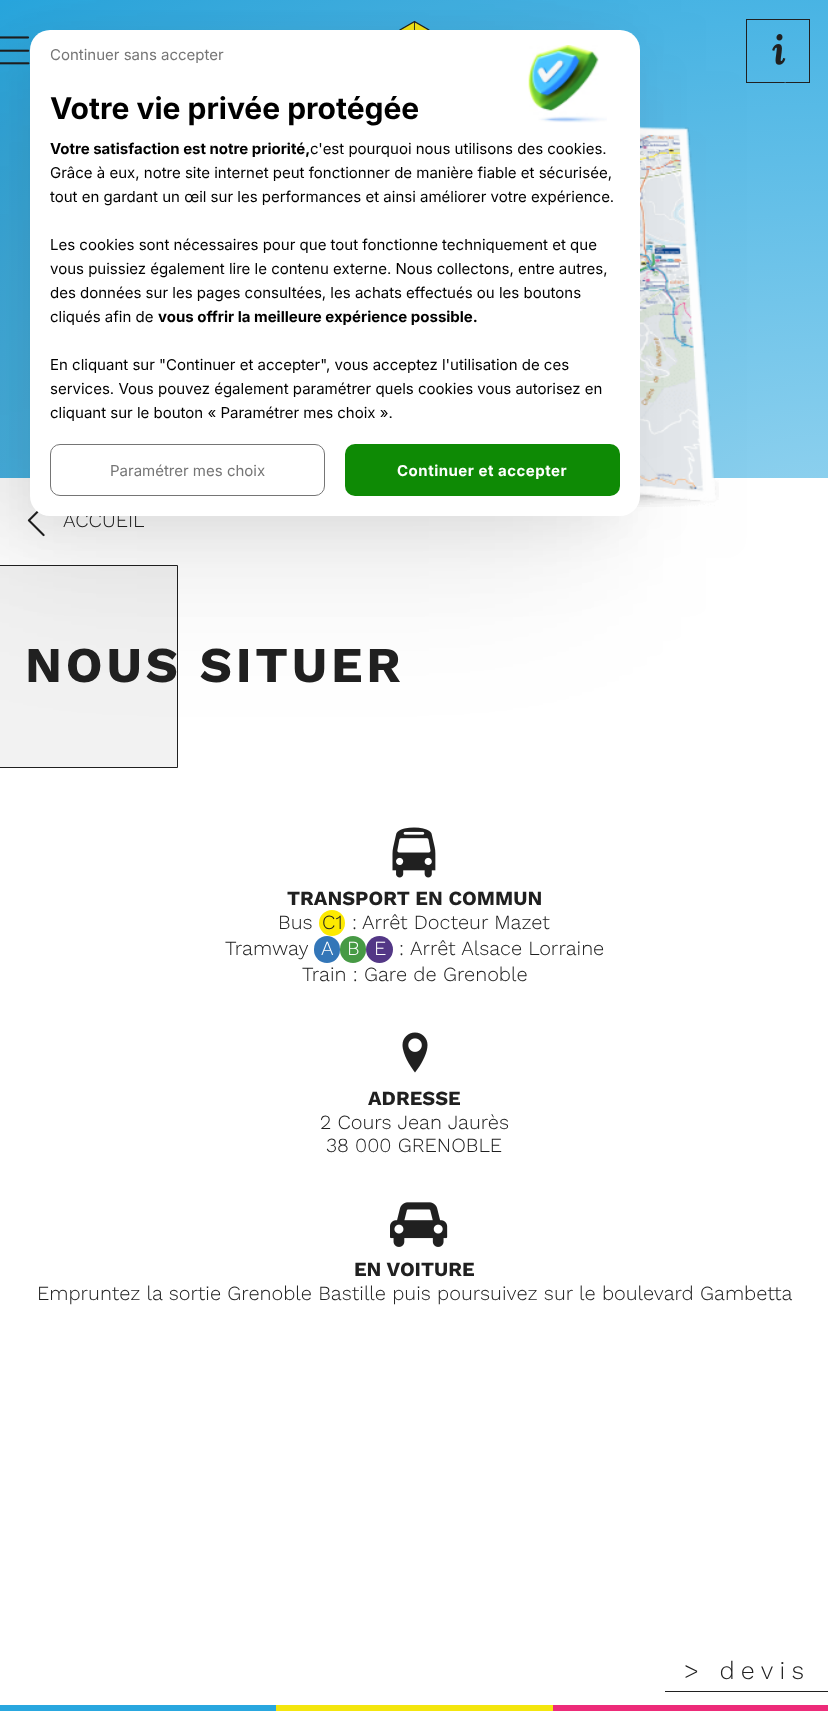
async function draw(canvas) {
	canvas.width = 828;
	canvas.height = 1711;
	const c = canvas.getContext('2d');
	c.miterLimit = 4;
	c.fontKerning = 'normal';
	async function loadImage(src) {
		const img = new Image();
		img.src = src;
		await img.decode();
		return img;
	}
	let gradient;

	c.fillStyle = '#fff';
	c.fillRect(0, 0, 828, 1711);
	gradient = c.createRadialGradient(829, 829.09, 0, 829, 829.09, 1172);
	gradient.addColorStop(0, '#94d3ef');
	gradient.addColorStop(1, '#29a7df');
	c.fillStyle = gradient;
	c.beginPath();
	c.rect(0, 0, 828, 478);
	c.save();
	c.clip();
	c.scale(1, 769 / 1172);
	c.fillRect(0, 0, 828, 2608);
	c.restore();
	c.drawImage(await loadImage('img2.png'), 636, 126, 83, 381);
	c.drawImage(await loadImage('img3.png'), 27, 511, 18, 26);
	c.fillStyle = '#f2f2f2';
	c.beginPath();
	c.rect(-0.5, 565.5, 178, 202);
	c.fill();
	c.strokeStyle = '#202020';
	c.stroke();
	c.drawImage(await loadImage('img7.png'), 399, 20, 31, 10);
	c.drawImage(await loadImage('img9.png'), 0, 36, 30, 29);
	c.fillStyle = '#0000000a';
	c.filter = 'blur(21.5px)';
	c.beginPath();
	c.roundRect(14, 43, 610, 486, 20);
	c.fill();
	c.filter = 'none';
	c.strokeRect(746.5, 19.5, 63, 63);
	c.fillStyle = '#0000000d';
	c.filter = 'blur(46.5px)';
	c.beginPath();
	c.roundRect(0, 54, 610, 486, 20);
	c.fill();
	c.filter = 'none';
	c.drawImage(await loadImage('img8.png'), 772, 34, 14, 31);
	c.fillStyle = '#54b9e5';
	c.beginPath();
	c.moveTo(785, 82.5);
	c.lineTo(786, 82.5);
	c.lineTo(784, 84);
	c.lineTo(782.5, 84);
	c.closePath();
	c.fill();
	c.fillStyle = '#00000012';
	c.filter = 'blur(89px)';
	c.beginPath();
	c.roundRect(-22, 71, 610, 487, 20);
	c.fill();
	c.filter = 'none';
	c.font = '300 20px Work Sans';
	c.fillStyle = '#202020';
	c.fillText('ACCUEIL', 63, 527);
	c.fillStyle = '#fff';
	c.beginPath();
	c.roundRect(30, 30, 610, 486, 20);
	c.fill();
	c.font = '15px Inter';
	c.fillStyle = '#757575';
	c.fillText('Continuer sans accepter', 50, 60);
	c.font = 'bold 30px Inter';
	c.fillStyle = '#000';
	c.fillText('Votre vie privée protégée', 50, 119);
	c.drawImage(await loadImage('img1.png'), 528, 45, 79, 78);
	c.font = 'bold 15px Inter';
	c.fillText('Votre satisfaction est notre priorité,', 50, 154);
	c.font = '15px Inter';
	for (const [text, x, y] of [
		['c\'est pourquoi nous utilisons des cookies.', 310, 154],
		['Grâce à eux, notre site internet peut fonctionner de manière fiable et sécurisée,', 50, 178],
		['tout en gardant un œil sur les performances et ainsi améliorer votre expérience.', 50, 202],
		['Les cookies sont nécessaires pour que tout fonctionne techniquement et que', 50, 250],
		['vous puissiez également lire le contenu externe. Nous collectons, entre autres,', 50, 274],
		['des données sur les pages consultées, les achats effectués ou les boutons', 50, 298],
		['cliqués afin de', 50, 322],
	]) {
		c.fillText(text, x, y);
	}
	c.font = 'bold 15px Inter';
	c.fillText('vous offrir la meilleure expérience possible.', 158, 322);
	c.font = '15px Inter';
	for (const [text, x, y] of [
		['En cliquant sur "Continuer et accepter", vous acceptez l\'utilisation de ces', 50, 370],
		['services. Vous pouvez également paramétrer quels cookies vous autorisez en', 50, 394],
		['cliquant sur le bouton « Paramétrer mes choix ».', 50, 418],
	]) {
		c.fillText(text, x, y);
	}
	c.beginPath();
	c.roundRect(50.5, 444.5, 274, 51, 9.5);
	c.strokeStyle = '#757575';
	c.stroke();
	c.fillStyle = '#757575';
	c.fillText('Paramétrer mes choix', 110, 476);
	c.fillStyle = '#0e8a05';
	c.beginPath();
	c.roundRect(345, 444, 275, 52, 10);
	c.fill();
	c.letterSpacing = '0.5px';
	c.font = 'bold 15px Inter';
	c.fillStyle = '#fff';
	c.fillText('Continuer et accepter', 397, 476);
	c.letterSpacing = '3.75px';
	c.font = 'bold 50px Work Sans';
	c.fillStyle = '#202020';
	c.fillText('NOUS SITUER', 25, 682);
	c.drawImage(await loadImage('img4.png'), 392, 827, 44, 51);
	c.letterSpacing = '0px';
	c.font = 'bold 20px Work Sans';
	c.fillText('TRANSPORT EN COMMUN', 287, 905);
	c.font = '300 20px Work Sans';
	c.fillText('Bus', 278, 929);
	c.fillStyle = '#fdea00';
	c.beginPath();
	c.arc(332, 923, 13, 0, 2 * Math.PI);
	c.fill();
	c.fillStyle = '#202020';
	for (const [text, x, y] of [
		['C1', 322, 929],
		[':', 352, 929],
		['Arrêt Docteur Mazet', 362, 929],
		['Tramway', 225, 955],
	]) {
		c.fillText(text, x, y);
	}
	c.fillStyle = '#3376b8';
	c.beginPath();
	c.roundRect(314, 936, 26, 27, 13);
	c.fill();
	c.fillStyle = '#fff';
	c.fillText('A', 321, 955);
	c.fillStyle = '#479a45';
	c.beginPath();
	c.roundRect(340, 936, 26, 27, 13);
	c.fill();
	c.fillStyle = '#fff';
	c.fillText('B', 347, 955);
	c.fillStyle = '#533786';
	c.beginPath();
	c.arc(379.5, 949.5, 13.5, 0, 2 * Math.PI);
	c.fill();
	c.fillStyle = '#fff';
	c.fillText('E', 374, 955);
	c.fillStyle = '#202020';
	for (const [text, x, y] of [
		[':', 399, 955],
		['Arrêt Alsace Lorraine', 410, 955],
		['Train : Gare de Grenoble', 302, 981],
	]) {
		c.fillText(text, x, y);
	}
	c.drawImage(await loadImage('img5.png'), 402, 1032, 26, 41);
	c.font = 'bold 20px Work Sans';
	c.fillText('ADRESSE', 368, 1105);
	c.font = '300 20px Work Sans';
	c.fillText('2 Cours Jean Jaurès', 320, 1129);
	c.fillText('38 000 GRENOBLE', 326, 1152);
	c.drawImage(await loadImage('img6.png'), 390, 1202, 58, 45);
	c.font = 'bold 20px Work Sans';
	c.fillText('EN VOITURE', 354, 1276);
	c.font = '300 20px Work Sans';
	c.fillText('Empruntez la sortie Grenoble Bastille puis poursuivez sur le boulevard Gambetta', 37, 1300);
	c.fillRect(665, 1691, 163, 1);
	c.letterSpacing = '6.25px';
	c.font = '300 25px Work Sans';
	c.fillText('> devis', 684, 1679);
	for (const [x, y, w, h, color] of [
		[276, 1705, 277, 6, '#f4e60d'],
		[553, 1705, 275, 6, '#ed2b79'],
		[0, 1705, 276, 6, '#29a7df'],
	]) {
		c.fillStyle = color;
		c.fillRect(x, y, w, h);
	}
}

draw(document.querySelector('canvas'));
